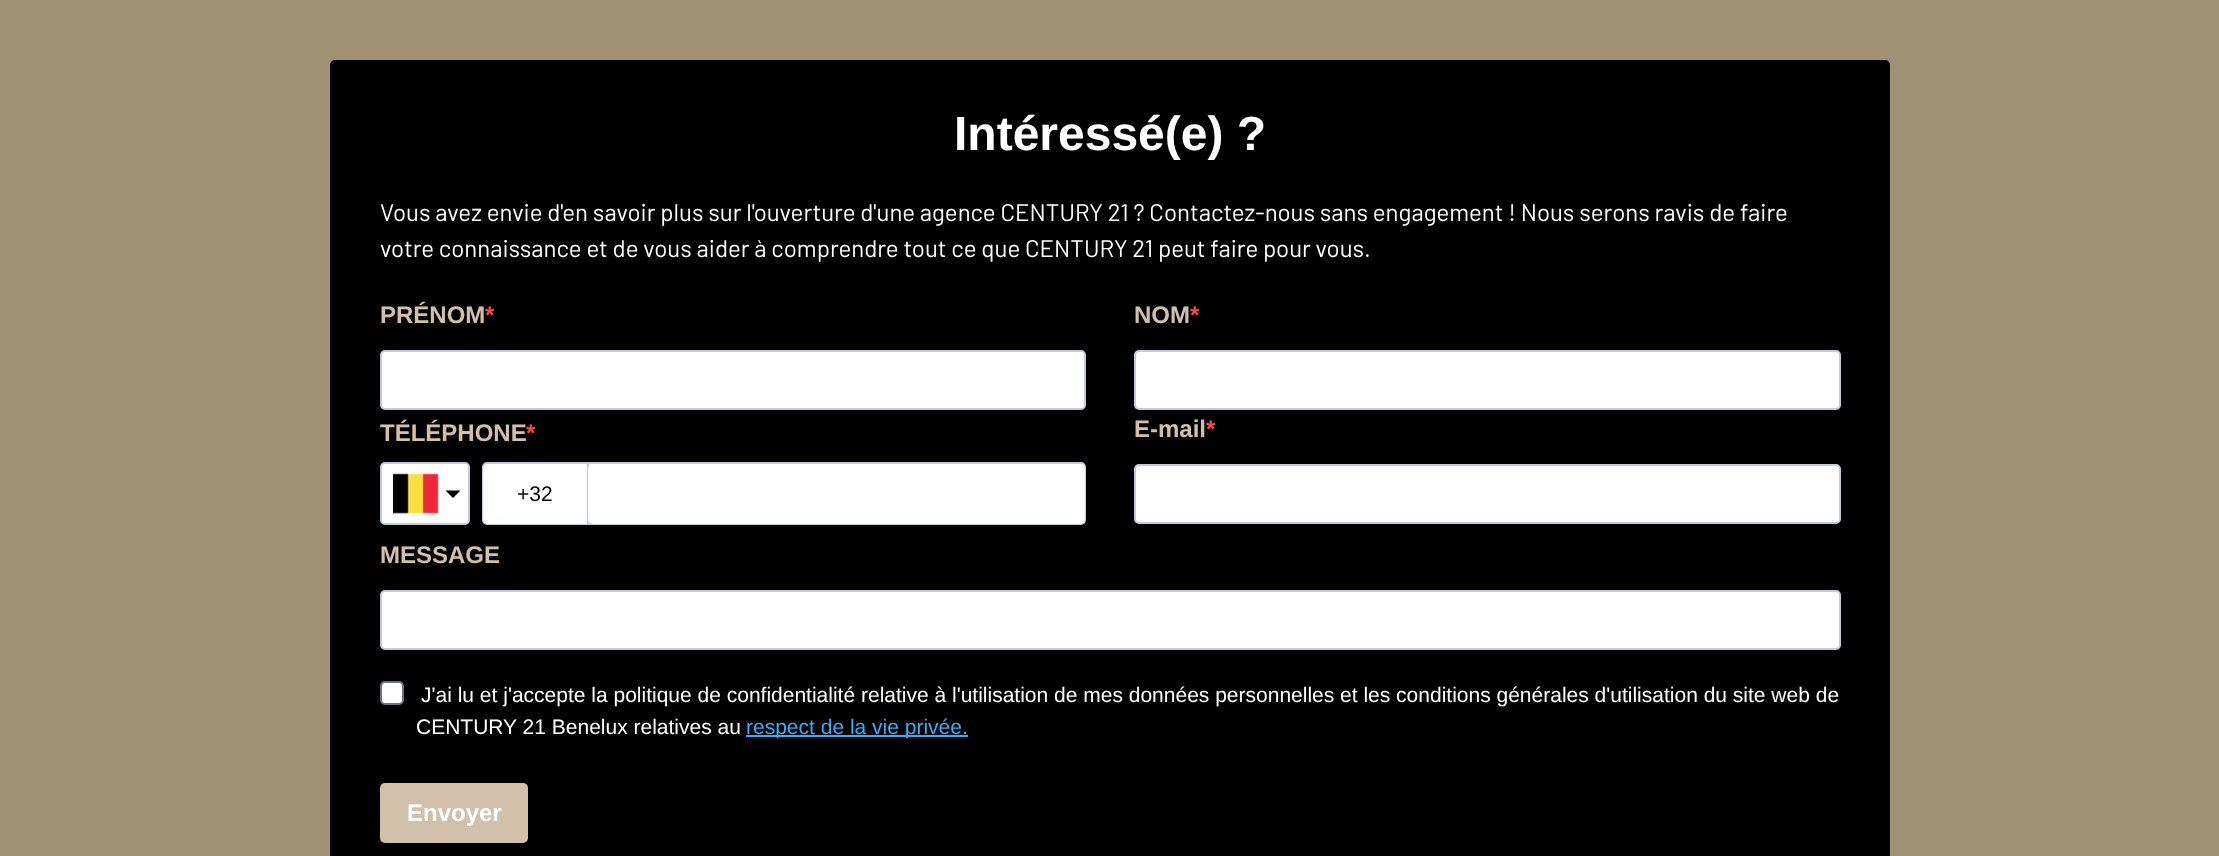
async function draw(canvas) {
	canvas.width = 2219;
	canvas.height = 856;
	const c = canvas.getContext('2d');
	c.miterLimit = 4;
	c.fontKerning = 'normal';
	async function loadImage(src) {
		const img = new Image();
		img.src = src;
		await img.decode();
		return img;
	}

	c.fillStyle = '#a09274';
	c.fillRect(0, 0, 2219, 856);
	c.fillStyle = '#000';
	c.beginPath();
	c.roundRect(330, 60, 1560, 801, 5);
	c.fill();
	c.font = 'bold 48px Liberation Sans';
	c.fillStyle = '#fff';
	c.fillText('Intéressé(e) ?', 954, 150);
	c.font = '24px Barlow';
	c.fillText('Vous avez envie d\'en savoir plus sur l\'ouverture d\'une agence CENTURY 21 ? Contactez-nous sans engagement ! Nous serons ravis de faire', 380, 221);
	c.fillText('votre connaissance et de vous aider à comprendre tout ce que CENTURY 21 peut faire pour vous.', 380, 257);
	c.font = 'bold 24px Liberation Sans';
	c.fillStyle = '#d2c0aa';
	c.fillText('PRÉNOM', 380, 323);
	c.fillStyle = '#ff4949';
	c.fillText('*', 485, 323);
	c.fillStyle = '#fff';
	c.beginPath();
	c.roundRect(381, 351, 704, 58, 4);
	c.fill();
	c.strokeStyle = '#c0ccda';
	c.lineWidth = 2;
	c.stroke();
	c.fillStyle = '#d2c0aa';
	c.fillText('NOM', 1134, 323);
	c.fillStyle = '#ff4949';
	c.fillText('*', 1190, 323);
	c.fillStyle = '#fff';
	c.beginPath();
	c.roundRect(1135, 351, 705, 58, 4);
	c.fill();
	c.stroke();
	c.fillStyle = '#d2c0aa';
	c.fillText('TÉLÉPHONE', 380, 441);
	c.fillStyle = '#ff4949';
	c.fillText('*', 526, 441);
	c.fillStyle = '#fff';
	c.beginPath();
	c.roundRect(381, 463, 88, 61, 4);
	c.fill();
	c.stroke();
	c.drawImage(await loadImage('img1.png'), 393, 472, 46, 43);
	c.fillStyle = '#000';
	c.beginPath();
	c.moveTo(445.5, 490.5);
	c.lineTo(460.5, 490.5);
	c.lineTo(453, 498);
	c.closePath();
	c.fill();
	c.fillStyle = '#fff';
	c.beginPath();
	c.roundRect(483, 463, 602, 61, 4);
	c.fill();
	c.stroke();
	c.beginPath();
	c.roundRect(483, 464, 105, 60, [5, 0, 0, 5]);
	c.fill();
	c.fillStyle = '#c0ccda';
	c.fillRect(587, 464, 2, 60);
	c.font = '21px Liberation Sans';
	c.fillStyle = '#000';
	c.fillText('+32', 517, 501);
	c.fillStyle = '#fff';
	c.beginPath();
	c.roundRect(588, 464, 497, 60, 5);
	c.fill();
	c.font = 'bold 24px Liberation Sans';
	c.fillStyle = '#d2c0aa';
	c.fillText('E-mail', 1134, 437);
	c.fillStyle = '#ff4949';
	c.fillText('*', 1206, 437);
	c.fillStyle = '#fff';
	c.beginPath();
	c.roundRect(1135, 465, 705, 58, 4);
	c.fill();
	c.stroke();
	c.fillStyle = '#d2c0aa';
	c.fillText('MESSAGE', 380, 563);
	c.fillStyle = '#fff';
	c.beginPath();
	c.roundRect(381, 591, 1459, 58, 4);
	c.fill();
	c.stroke();
	c.beginPath();
	c.roundRect(381, 682, 22, 22, 4);
	c.fill();
	c.strokeStyle = '#687484';
	c.stroke();
	c.beginPath();
	c.moveTo(384, 691);
	c.lineTo(391.5, 698.5);
	c.lineTo(389, 700.5);
	c.lineTo(381.5, 693);
	c.closePath();
	c.fill();
	c.font = '21px Liberation Sans';
	c.fillText('J\'ai lu et j\'accepte la politique de confidentialité relative à l\'utilisation de mes données personnelles et les conditions générales d\'utilisation du site web de', 421, 702);
	c.fillText('CENTURY 21 Benelux relatives au', 416, 734);
	c.fillStyle = '#2bb2fc';
	c.fillRect(746, 735, 222, 2);
	c.fillText('respect de la vie privée.', 746, 734);
	c.fillStyle = '#d2c0aa';
	c.beginPath();
	c.roundRect(380, 783, 148, 60, 5);
	c.fill();
	c.font = 'bold 24px Liberation Sans';
	c.fillStyle = '#fff';
	c.fillText('Envoyer', 407, 821);
}

draw(document.querySelector('canvas'));
